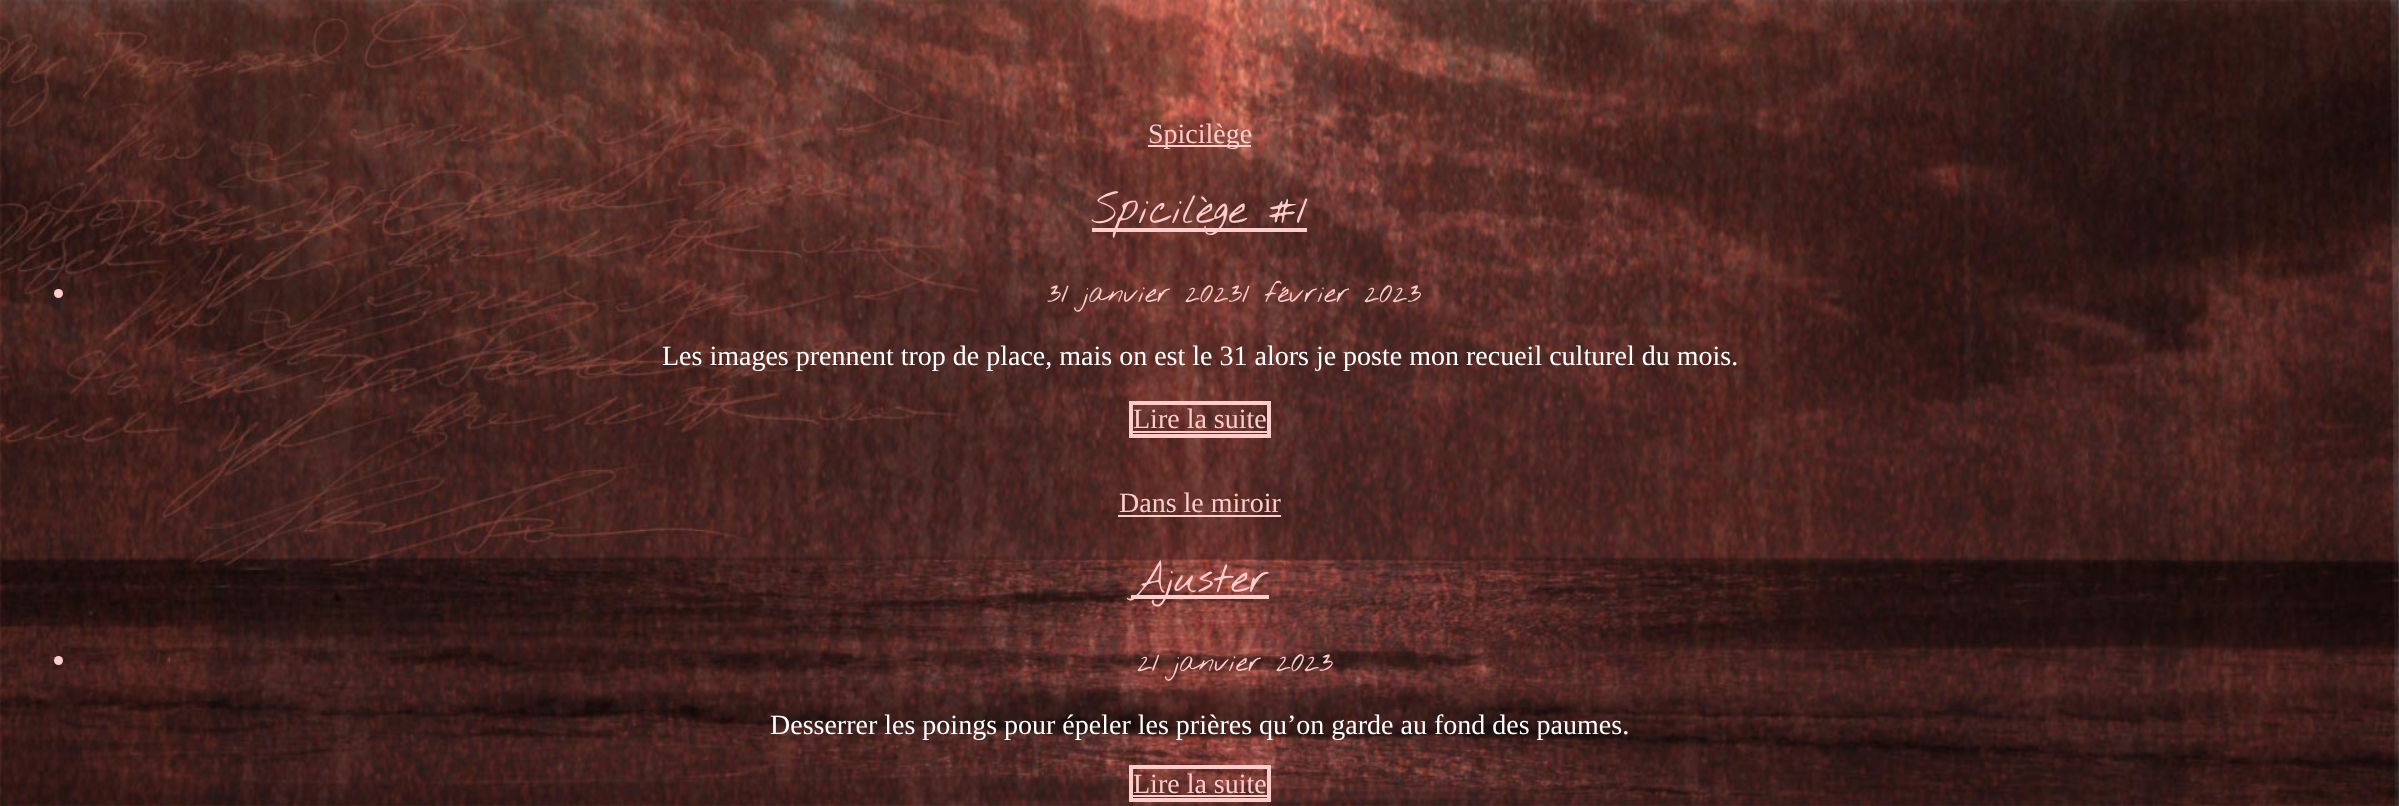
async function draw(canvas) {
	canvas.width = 2399;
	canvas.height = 806;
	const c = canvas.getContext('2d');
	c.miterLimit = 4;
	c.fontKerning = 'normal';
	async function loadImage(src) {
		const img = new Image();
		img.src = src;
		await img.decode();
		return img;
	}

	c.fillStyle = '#fff';
	c.fillRect(0, 0, 2399, 806);
	c.drawImage(await loadImage('img1.png'), 0, 0, 2399, 806);
	c.fillStyle = '#fcc';
	c.fillRect(1148, 145, 103, 2);
	c.font = '28px Liberation Serif';
	c.fillText('Spicilège', 1148, 143);
	c.fillRect(1092, 228, 215, 4);
	c.font = '100 42px Nothing You Could Do';
	c.fillText('Spicilège #1', 1091, 223);
	c.beginPath();
	c.arc(58.5, 293.5, 4.5, 0, 2 * Math.PI);
	c.fill();
	c.font = '100 28px Nothing You Could Do';
	c.fillText('31 janvier 20231 février 2023', 1047, 302);
	c.font = '28px Liberation Serif';
	c.fillStyle = '#fff';
	c.fillText('Les images prennent trop de place, mais on est le 31 alors je poste mon recueil culturel du mois.', 662, 365);
	c.strokeStyle = '#fcc';
	c.lineWidth = 4;
	c.strokeRect(1131, 403, 138, 33);
	c.fillStyle = '#fcc';
	c.fillText('Lire la suite', 1133, 428);
	c.fillRect(1132, 431, 135, 2);
	c.fillText('Dans le miroir', 1119, 512);
	c.fillRect(1118, 515, 163, 2);
	c.fillRect(1131, 595, 138, 4);
	c.font = '100 42px Nothing You Could Do';
	c.fillText('Ajuster', 1131, 592);
	c.beginPath();
	c.arc(58.5, 660.5, 4.5, 0, 2 * Math.PI);
	c.fill();
	c.font = '100 28px Nothing You Could Do';
	c.fillText('21 janvier 2023', 1137, 671);
	c.font = '28px Liberation Serif';
	c.fillStyle = '#fff';
	c.fillText('Desserrer les poings pour épeler les prières qu’on garde au fond des paumes.', 770, 734);
	c.strokeRect(1131, 767, 138, 33);
	c.fillStyle = '#fcc';
	c.fillText('Lire la suite', 1133, 793);
	c.fillRect(1132, 795, 135, 2);
}

draw(document.querySelector('canvas'));
